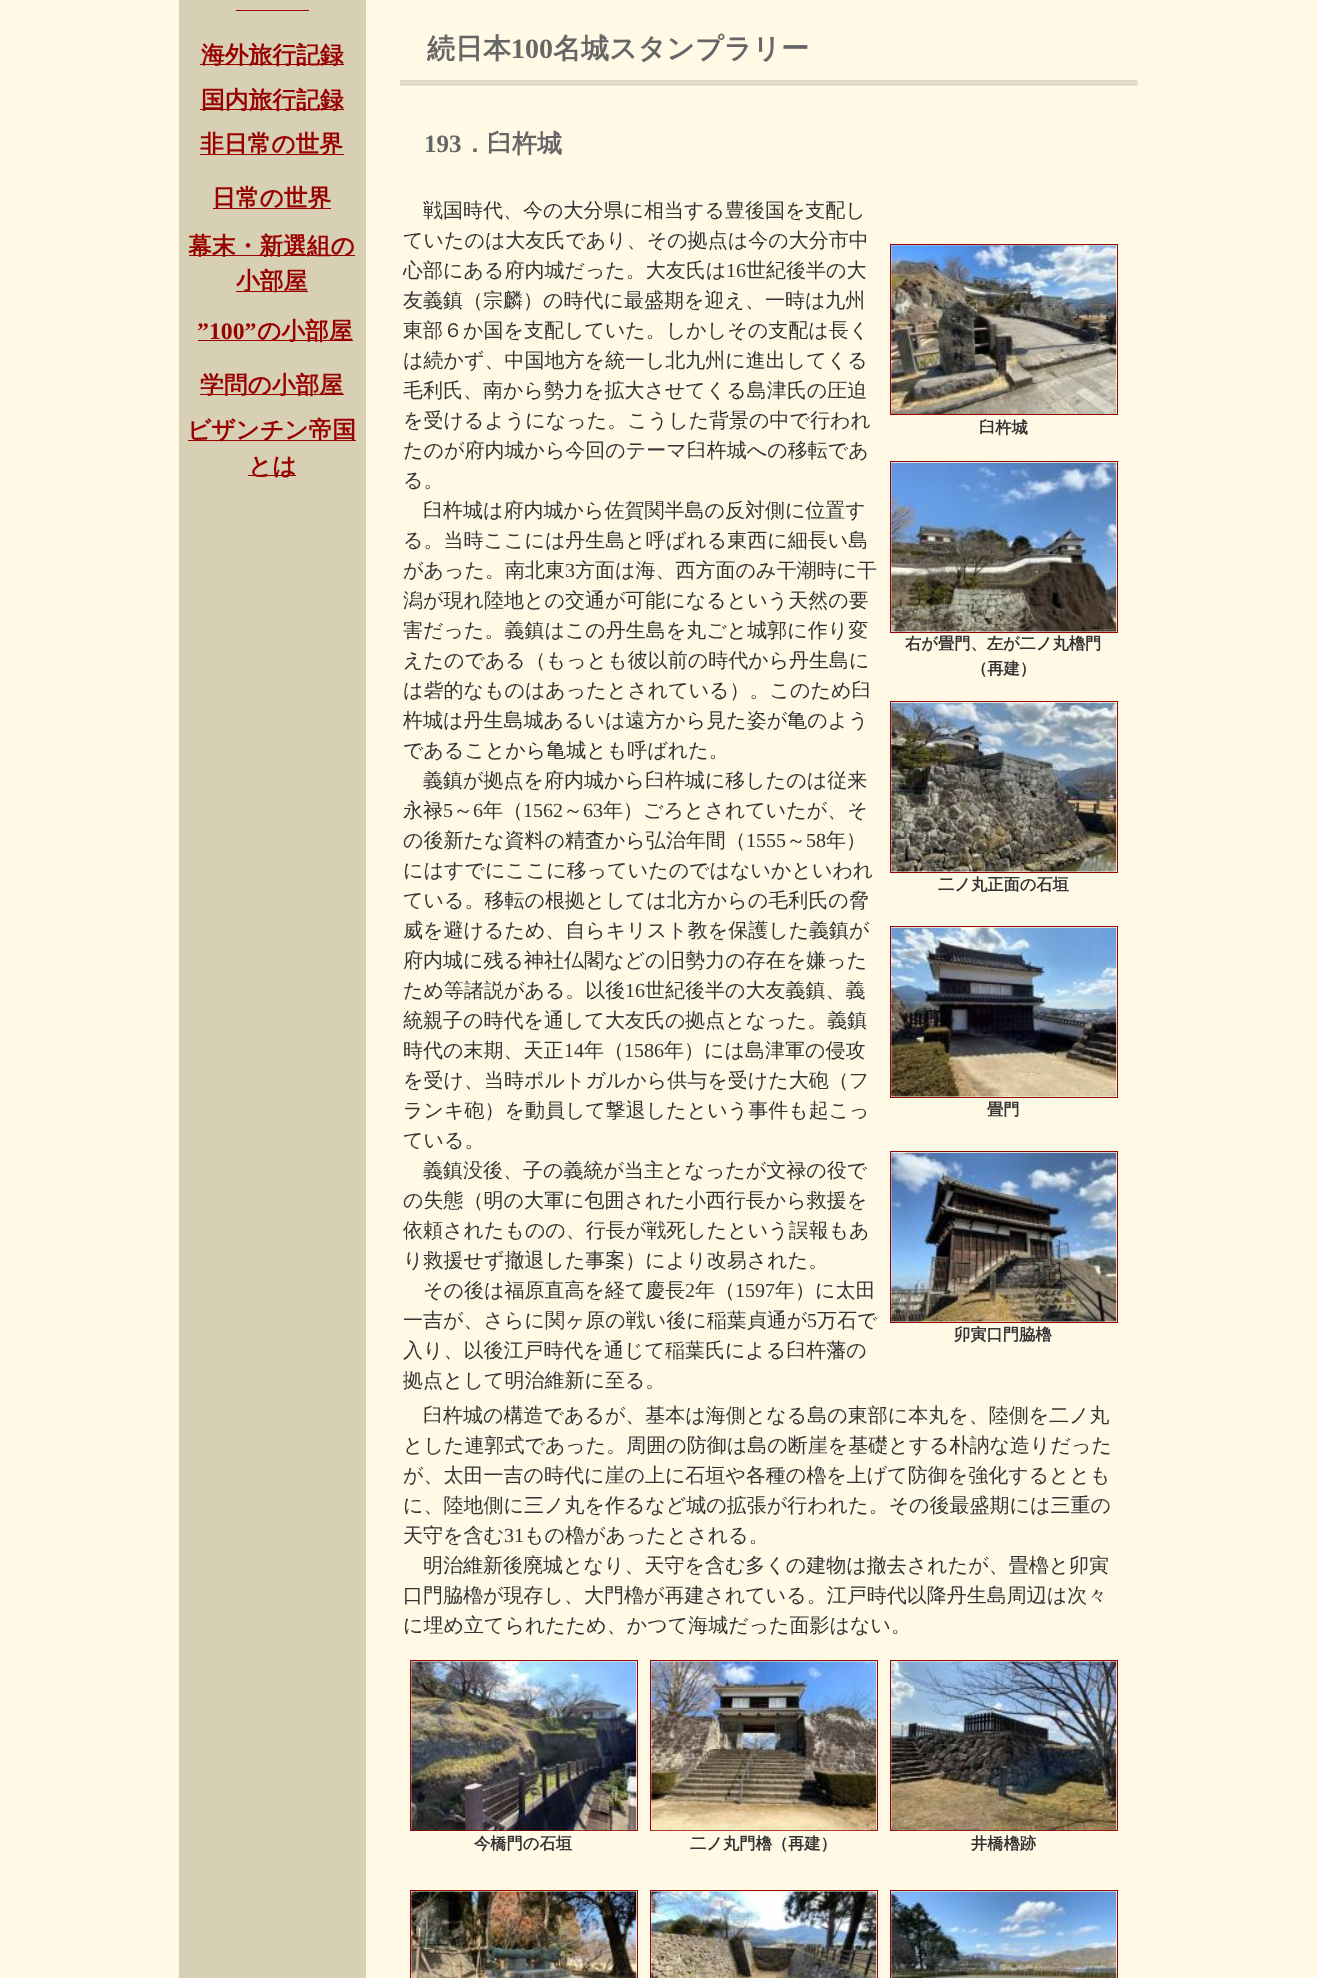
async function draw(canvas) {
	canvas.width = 1317;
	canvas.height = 1978;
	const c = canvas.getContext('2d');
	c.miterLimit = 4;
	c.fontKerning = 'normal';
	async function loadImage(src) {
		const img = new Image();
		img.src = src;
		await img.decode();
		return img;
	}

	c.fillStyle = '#fff9e6';
	c.fillRect(0, 0, 1317, 1978);
	for (const [x, y, w, h, color] of [
		[179, 0, 187, 1978, '#d7d0b4'],
		[236, 10, 73, 1, '#900'],
		[200, 64, 144, 1, '#900'],
	]) {
		c.fillStyle = color;
		c.fillRect(x, y, w, h);
	}
	c.font = 'bold 23.75px WenQuanYi Zen Hei';
	c.fillText('海外旅行記録', 201, 63);
	c.fillRect(200, 109, 144, 1);
	c.fillText('国内旅行記録', 201, 108);
	c.fillRect(200, 154, 144, 1);
	c.fillText('非日常の世界', 200, 152);
	c.fillRect(213, 208, 118, 1);
	c.fillText('日常の世界', 212, 206);
	c.fillRect(189, 255, 166, 1);
	c.fillText('幕末・新選組の', 188, 254);
	c.fillRect(236, 291, 72, 1);
	c.fillText('小部屋', 236, 289);
	c.font = 'bold 23.75px Liberation Serif';
	c.fillText('”100”', 197, 339);
	c.fillRect(198, 340, 155, 1);
	c.font = 'bold 23.75px WenQuanYi Zen Hei';
	c.fillText('の小部屋', 257, 339);
	c.fillRect(200, 394, 144, 1);
	c.fillText('学問の小部屋', 200, 393);
	c.fillRect(188, 440, 168, 1);
	c.fillText('ビザンチン帝国', 187, 438);
	c.fillRect(248, 475, 48, 1);
	c.fillText('とは', 248, 474);
	c.font = 'bold 28px WenQuanYi Zen Hei';
	c.fillStyle = '#666';
	c.fillText('続日本', 427, 58);
	c.font = 'bold 28px Liberation Serif';
	c.fillText('100', 511, 58);
	c.font = 'bold 28px WenQuanYi Zen Hei';
	c.fillText('名城スタンプラリー', 553, 58);
	c.drawImage(await loadImage('img1.png'), 400, 80, 738, 6);
	c.font = 'bold 25px Liberation Serif';
	c.fillText('193', 424, 152);
	c.font = 'bold 25px WenQuanYi Zen Hei';
	c.fillText('．臼杵城', 462, 152);
	c.font = '500 20px WenQuanYi Zen Hei';
	c.fillStyle = '#333';
	for (const [text, x, y] of [
		['戦国時代、今の大分県に相当する豊後国を支配し', 423, 217],
		['ていたのは大友氏であり、その拠点は今の大分市中', 403, 247],
		['心部にある府内城だった。大友氏は', 403, 277],
	]) {
		c.fillText(text, x, y);
	}
	c.font = '20px Liberation Serif';
	c.fillText('16', 726, 277);
	c.font = '500 20px WenQuanYi Zen Hei';
	for (const [text, x, y] of [
		['世紀後半の大', 746, 277],
		['友義鎮（宗麟）の時代に最盛期を迎え、一時は九州', 403, 307],
		['東部６か国を支配していた。しかしその支配は長く', 403, 337],
		['は続かず、中国地方を統一し北九州に進出してくる', 403, 367],
		['毛利氏、南から勢力を拡大させてくる島津氏の圧迫', 403, 397],
		['を受けるようになった。こうした背景の中で行われ', 403, 427],
		['たのが府内城から今回のテーマ臼杵城への移転であ', 403, 457],
		['る。', 403, 487],
		['臼杵城は府内城から佐賀関半島の反対側に位置す', 423, 517],
		['る。当時ここには丹生島と呼ばれる東西に細長い島', 403, 547],
		['があった。南北東', 403, 577],
	]) {
		c.fillText(text, x, y);
	}
	c.font = '20px Liberation Serif';
	c.fillText('3', 565, 577);
	c.font = '500 20px WenQuanYi Zen Hei';
	for (const [text, x, y] of [
		['方面は海、西方面のみ干潮時に干', 575, 577],
		['潟が現れ陸地との交通が可能になるという天然の要', 403, 607],
		['害だった。義鎮はこの丹生島を丸ごと城郭に作り変', 403, 637],
		['えたのである（もっとも彼以前の時代から丹生島に', 403, 667],
		['は砦的なものはあったとされている）。このため臼', 403, 697],
		['杵城は丹生島城あるいは遠方から見た姿が亀のよう', 403, 727],
		['であることから亀城とも呼ばれた。', 403, 757],
		['義鎮が拠点を府内城から臼杵城に移したのは従来', 423, 787],
		['永禄', 403, 817],
	]) {
		c.fillText(text, x, y);
	}
	c.font = '20px Liberation Serif';
	c.fillText('5', 443, 817);
	c.font = '500 20px WenQuanYi Zen Hei';
	c.fillText('～', 453, 817);
	c.font = '20px Liberation Serif';
	c.fillText('6', 473, 817);
	c.font = '500 20px WenQuanYi Zen Hei';
	c.fillText('年（', 483, 817);
	c.font = '20px Liberation Serif';
	c.fillText('1562', 523, 817);
	c.font = '500 20px WenQuanYi Zen Hei';
	c.fillText('～', 563, 817);
	c.font = '20px Liberation Serif';
	c.fillText('63', 583, 817);
	c.font = '500 20px WenQuanYi Zen Hei';
	c.fillText('年）ごろとされていたが、そ', 603, 817);
	c.fillText('の後新たな資料の精査から弘治年間（', 403, 847);
	c.font = '20px Liberation Serif';
	c.fillText('1555', 746, 847);
	c.font = '500 20px WenQuanYi Zen Hei';
	c.fillText('～', 786, 847);
	c.font = '20px Liberation Serif';
	c.fillText('58', 806, 847);
	c.font = '500 20px WenQuanYi Zen Hei';
	for (const [text, x, y] of [
		['年）', 826, 847],
		['にはすでにここに移っていたのではないかといわれ', 403, 877],
		['ている。移転の根拠としては北方からの毛利氏の脅', 403, 907],
		['威を避けるため、自らキリスト教を保護した義鎮が', 403, 937],
		['府内城に残る神社仏閣などの旧勢力の存在を嫌った', 403, 967],
		['ため等諸説がある。以後', 403, 997],
	]) {
		c.fillText(text, x, y);
	}
	c.font = '20px Liberation Serif';
	c.fillText('16', 625, 997);
	c.font = '500 20px WenQuanYi Zen Hei';
	for (const [text, x, y] of [
		['世紀後半の大友義鎮、義', 645, 997],
		['統親子の時代を通して大友氏の拠点となった。義鎮', 403, 1027],
		['時代の末期、天正', 403, 1057],
	]) {
		c.fillText(text, x, y);
	}
	c.font = '20px Liberation Serif';
	c.fillText('14', 564, 1057);
	c.font = '500 20px WenQuanYi Zen Hei';
	c.fillText('年（', 584, 1057);
	c.font = '20px Liberation Serif';
	c.fillText('1586', 624, 1057);
	c.font = '500 20px WenQuanYi Zen Hei';
	for (const [text, x, y] of [
		['年）には島津軍の侵攻', 664, 1057],
		['を受け、当時ポルトガルから供与を受けた大砲（フ', 403, 1087],
		['ランキ砲）を動員して撃退したという事件も起こっ', 403, 1117],
		['ている。', 403, 1147],
		['義鎮没後、子の義統が当主となったが文禄の役で', 423, 1177],
		['の失態（明の大軍に包囲された小西行長から救援を', 403, 1207],
		['依頼されたものの、行長が戦死したという誤報もあ', 403, 1237],
		['り救援せず撤退した事案）により改易された。', 403, 1267],
		['その後は福原直高を経て慶長', 423, 1297],
	]) {
		c.fillText(text, x, y);
	}
	c.font = '20px Liberation Serif';
	c.fillText('2', 685, 1297);
	c.font = '500 20px WenQuanYi Zen Hei';
	c.fillText('年（', 695, 1297);
	c.font = '20px Liberation Serif';
	c.fillText('1597', 735, 1297);
	c.font = '500 20px WenQuanYi Zen Hei';
	c.fillText('年）に太田', 775, 1297);
	c.fillText('一吉が、さらに関ヶ原の戦い後に稲葉貞通が', 403, 1327);
	c.font = '20px Liberation Serif';
	c.fillText('5', 807, 1327);
	c.font = '500 20px WenQuanYi Zen Hei';
	for (const [text, x, y] of [
		['万石で', 817, 1327],
		['入り、以後江戸時代を通じて稲葉氏による臼杵藩の', 403, 1357],
		['拠点として明治維新に至る。', 403, 1387],
	]) {
		c.fillText(text, x, y);
	}
	c.strokeStyle = '#900';
	c.strokeRect(890.5, 244.5, 227, 170);
	c.drawImage(await loadImage('img2.png'), 891, 245, 226, 169);
	c.font = 'bold 16.25px WenQuanYi Zen Hei';
	c.fillText('臼杵城', 979, 433);
	c.strokeRect(890.5, 461.5, 227, 171);
	c.drawImage(await loadImage('img3.png'), 891, 462, 226, 170);
	c.fillText('右が畳門、左が二ノ丸櫓門', 905, 649);
	c.fillText('（再建）', 971, 674);
	c.strokeRect(890.5, 701.5, 227, 171);
	c.drawImage(await loadImage('img4.png'), 891, 702, 226, 170);
	c.fillText('二ノ丸正面の石垣', 938, 890);
	c.strokeRect(890.5, 926.5, 227, 171);
	c.drawImage(await loadImage('img5.png'), 891, 927, 226, 170);
	c.fillText('畳門', 987, 1115);
	c.strokeRect(890.5, 1151.5, 227, 171);
	c.drawImage(await loadImage('img6.png'), 891, 1152, 226, 170);
	c.fillText('卯寅口門脇櫓', 954, 1340);
	c.font = '500 20px WenQuanYi Zen Hei';
	for (const [text, x, y] of [
		['臼杵城の構造であるが、基本は海側となる島の東部に本丸を、陸側を二ノ丸', 423, 1422],
		['とした連郭式であった。周囲の防御は島の断崖を基礎とする朴訥な造りだった', 403, 1452],
		['が、太田一吉の時代に崖の上に石垣や各種の櫓を上げて防御を強化するととも', 403, 1482],
		['に、陸地側に三ノ丸を作るなど城の拡張が行われた。その後最盛期には三重の', 403, 1512],
		['天守を含む', 403, 1542],
	]) {
		c.fillText(text, x, y);
	}
	c.font = '20px Liberation Serif';
	c.fillText('31', 504, 1542);
	c.font = '500 20px WenQuanYi Zen Hei';
	for (const [text, x, y] of [
		['もの櫓があったとされる。', 524, 1542],
		['明治維新後廃城となり、天守を含む多くの建物は撤去されたが、畳櫓と卯寅', 423, 1572],
		['口門脇櫓が現存し、大門櫓が再建されている。江戸時代以降丹生島周辺は次々', 403, 1602],
		['に埋め立てられたため、かつて海城だった面影はない。', 403, 1632],
	]) {
		c.fillText(text, x, y);
	}
	c.strokeRect(410.5, 1660.5, 227, 170);
	c.drawImage(await loadImage('img7.png'), 411, 1661, 226, 170);
	c.font = 'bold 16.25px WenQuanYi Zen Hei';
	c.fillText('今橋門の石垣', 474, 1849);
	c.strokeRect(650.5, 1660.5, 227, 170);
	c.drawImage(await loadImage('img8.png'), 651, 1661, 226, 170);
	c.fillText('二ノ丸門櫓（再建）', 690, 1849);
	c.strokeRect(890.5, 1660.5, 227, 170);
	c.drawImage(await loadImage('img9.png'), 891, 1661, 226, 170);
	c.fillText('井橋櫓跡', 971, 1849);
	c.strokeRect(410.5, 1890.5, 227, 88);
	c.drawImage(await loadImage('img10.png'), 411, 1891, 226, 87);
	c.strokeRect(650.5, 1890.5, 227, 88);
	c.drawImage(await loadImage('img11.png'), 651, 1891, 226, 87);
	c.strokeRect(890.5, 1890.5, 227, 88);
	c.drawImage(await loadImage('img12.png'), 891, 1891, 226, 87);
}

draw(document.querySelector('canvas'));
